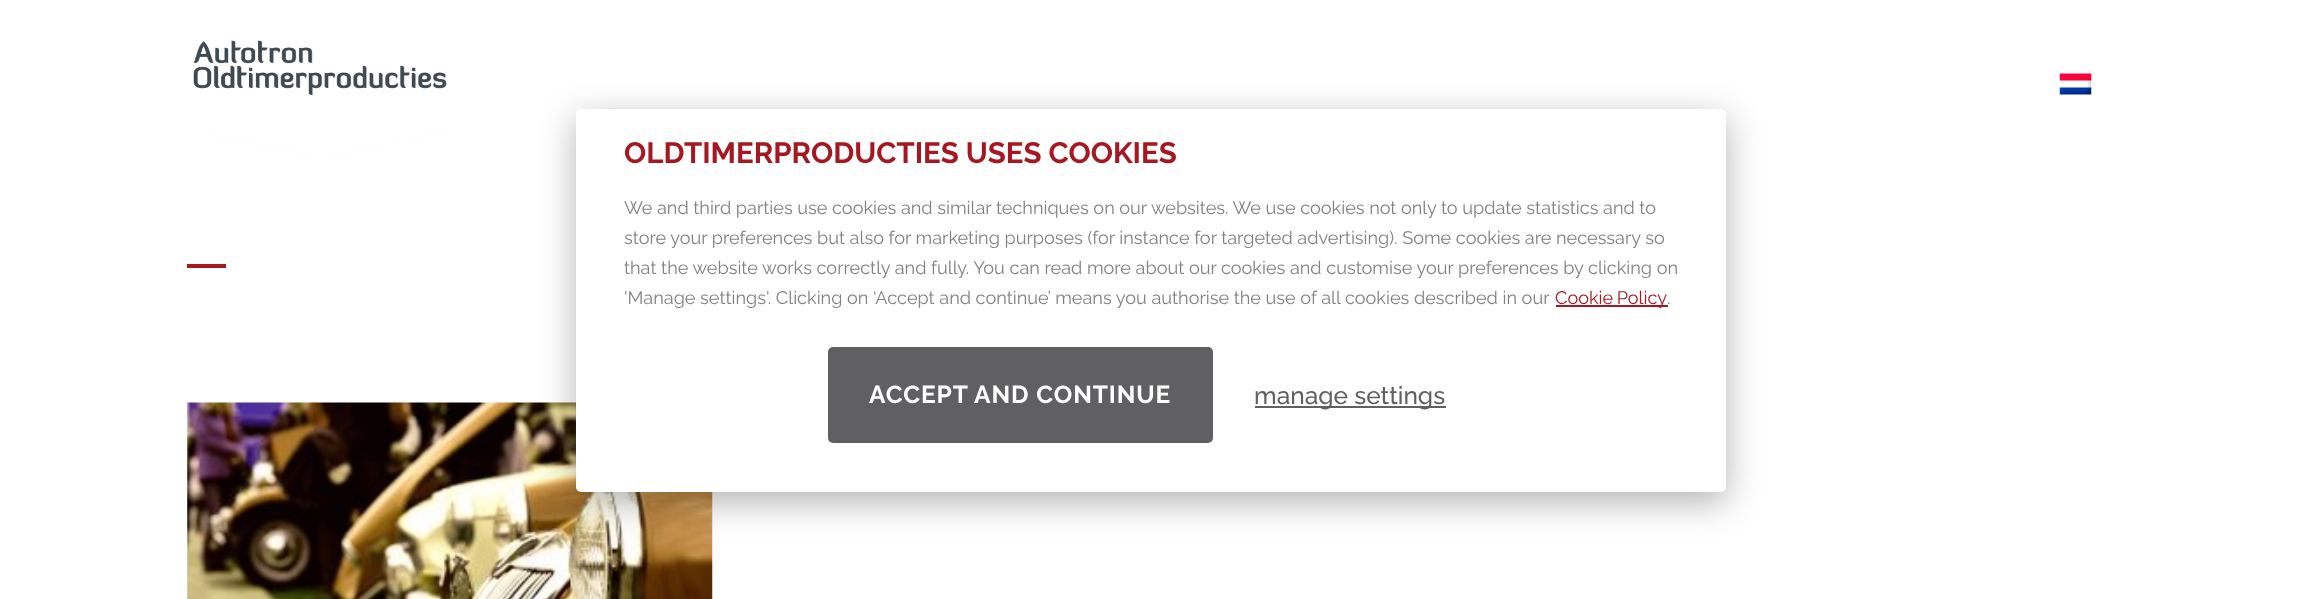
async function draw(canvas) {
	canvas.width = 2298;
	canvas.height = 599;
	const c = canvas.getContext('2d');
	c.miterLimit = 4;
	c.fontKerning = 'normal';
	async function loadImage(src) {
		const img = new Image();
		img.src = src;
		await img.decode();
		return img;
	}

	c.fillStyle = '#fff';
	c.fillRect(0, 0, 2298, 599);
	c.drawImage(await loadImage('img1.png'), 193, 40, 255, 116);
	c.drawImage(await loadImage('img2.png'), 2059, 73, 33, 22);
	c.fillStyle = '#a51821';
	c.fillRect(187, 264, 39, 4);
	c.drawImage(await loadImage('img3.png'), 187, 402, 526, 197);
	c.fillStyle = '#0000004d';
	c.filter = 'blur(17.5px)';
	c.beginPath();
	c.roundRect(576, 119, 1150, 383, 5);
	c.fill();
	c.filter = 'none';
	c.fillStyle = '#fff';
	c.beginPath();
	c.roundRect(576, 109, 1150, 383, 5);
	c.fill();
	c.font = 'bold 29.4px Raleway';
	c.fillStyle = '#a51821';
	c.fillText('OLDTIMERPRODUCTIES USES COOKIES', 624, 163);
	c.font = '18.13px Raleway';
	c.fillStyle = '#818181';
	for (const [text, x, y] of [
		['We and third parties use cookies and similar techniques on our websites. We use cookies not only to update statistics and to', 624, 214],
		['store your preferences but also for marketing purposes (for instance for targeted advertising). Some cookies are necessary so', 624, 244],
		['that the website works correctly and fully. You can read more about our cookies and customise your preferences by clicking on', 624, 274],
		['\'Manage settings\'. Clicking on ‘Accept and continue’ means you authorise the use of all cookies described in our', 624, 304],
	]) {
		c.fillText(text, x, y);
	}
	c.fillStyle = '#a51821';
	c.fillRect(1556, 305, 112, 2);
	c.wordSpacing = '-1px';
	c.fillText('Cookie Policy', 1555, 304);
	c.wordSpacing = '0px';
	c.fillStyle = '#818181';
	c.fillText('.', 1667, 304);
	c.fillStyle = '#605f61';
	c.beginPath();
	c.roundRect(828, 347, 385, 96, 5);
	c.fill();
	c.letterSpacing = '0.9px';
	c.font = 'bold 24.5px Raleway';
	c.fillStyle = '#fff';
	c.fillText('ACCEPT AND CONTINUE', 869, 403);
	c.fillStyle = '#605f61';
	c.fillRect(1255, 406, 191, 2);
	c.letterSpacing = '0px';
	c.font = '500 24.5px Raleway';
	c.fillText('manage settings', 1254, 404);
}

draw(document.querySelector('canvas'));
